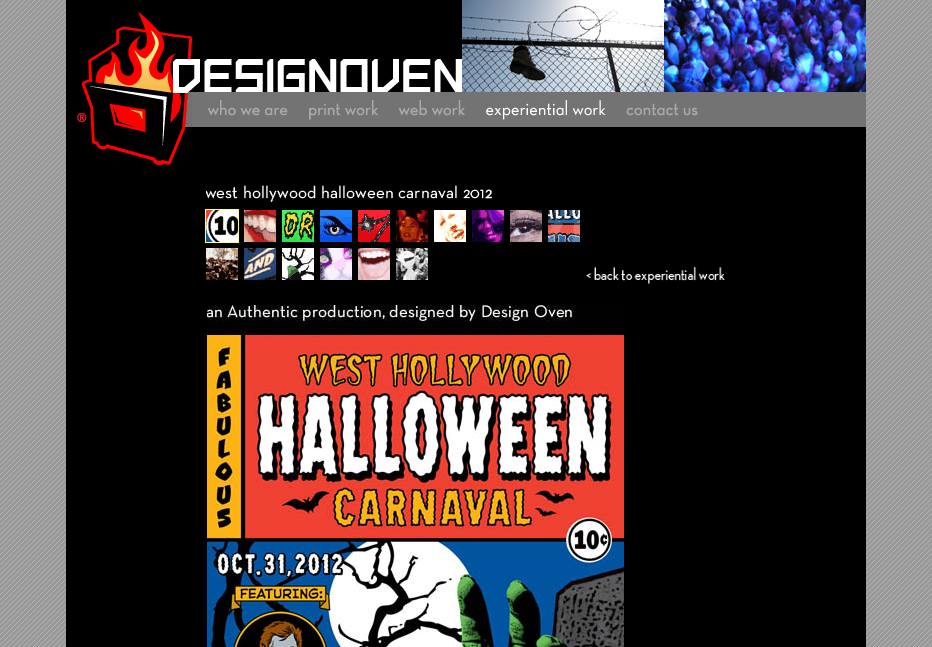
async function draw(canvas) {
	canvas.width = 932;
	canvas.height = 647;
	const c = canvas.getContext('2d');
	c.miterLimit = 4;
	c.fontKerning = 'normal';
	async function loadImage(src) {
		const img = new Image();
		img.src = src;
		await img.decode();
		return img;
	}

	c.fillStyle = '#fff';
	c.fillRect(0, 0, 932, 647);
	c.drawImage(await loadImage('img1.png'), 0, 0, 932, 647);
	c.drawImage(await loadImage('img2.png'), 66, 0, 126, 165);
	c.drawImage(await loadImage('img3.png'), 192, 0, 270, 92);
	c.drawImage(await loadImage('img4.png'), 462, 0, 202, 92);
	c.drawImage(await loadImage('img5.png'), 664, 0, 202, 92);
	c.fillStyle = '#737373';
	c.fillRect(192, 92, 674, 35);
	c.drawImage(await loadImage('img6.png'), 208, 100, 80, 16);
	c.drawImage(await loadImage('img7.png'), 309, 100, 70, 20);
	c.drawImage(await loadImage('img8.png'), 398, 100, 67, 16);
	c.drawImage(await loadImage('img9.png'), 486, 100, 120, 20);
	c.drawImage(await loadImage('img10.png'), 626, 103, 72, 13);
	c.fillStyle = '#000';
	c.fillRect(192, 127, 674, 38);
	c.fillRect(66, 165, 800, 482);
	c.drawImage(await loadImage('img11.png'), 206, 185, 286, 17);
	c.fillStyle = '#ff6';
	c.fillRect(205, 209, 34, 34);
	c.drawImage(await loadImage('img12.png'), 206, 210, 32, 32);
	c.drawImage(await loadImage('img13.png'), 244, 210, 32, 32);
	c.drawImage(await loadImage('img14.png'), 282, 210, 32, 32);
	c.drawImage(await loadImage('img15.png'), 320, 210, 32, 32);
	c.drawImage(await loadImage('img16.png'), 358, 210, 32, 32);
	c.drawImage(await loadImage('img17.png'), 396, 210, 32, 32);
	c.drawImage(await loadImage('img18.png'), 434, 210, 32, 32);
	c.drawImage(await loadImage('img19.png'), 472, 210, 32, 32);
	c.drawImage(await loadImage('img20.png'), 510, 210, 32, 32);
	c.drawImage(await loadImage('img21.png'), 548, 210, 32, 32);
	c.drawImage(await loadImage('img22.png'), 206, 248, 32, 32);
	c.drawImage(await loadImage('img23.png'), 244, 248, 32, 32);
	c.drawImage(await loadImage('img24.png'), 282, 248, 32, 32);
	c.drawImage(await loadImage('img25.png'), 320, 248, 32, 32);
	c.drawImage(await loadImage('img26.png'), 358, 248, 32, 32);
	c.drawImage(await loadImage('img27.png'), 396, 248, 32, 32);
	c.drawImage(await loadImage('img28.png'), 586, 267, 139, 17);
	c.drawImage(await loadImage('img29.png'), 207, 305, 417, 342);
}

draw(document.querySelector('canvas'));
